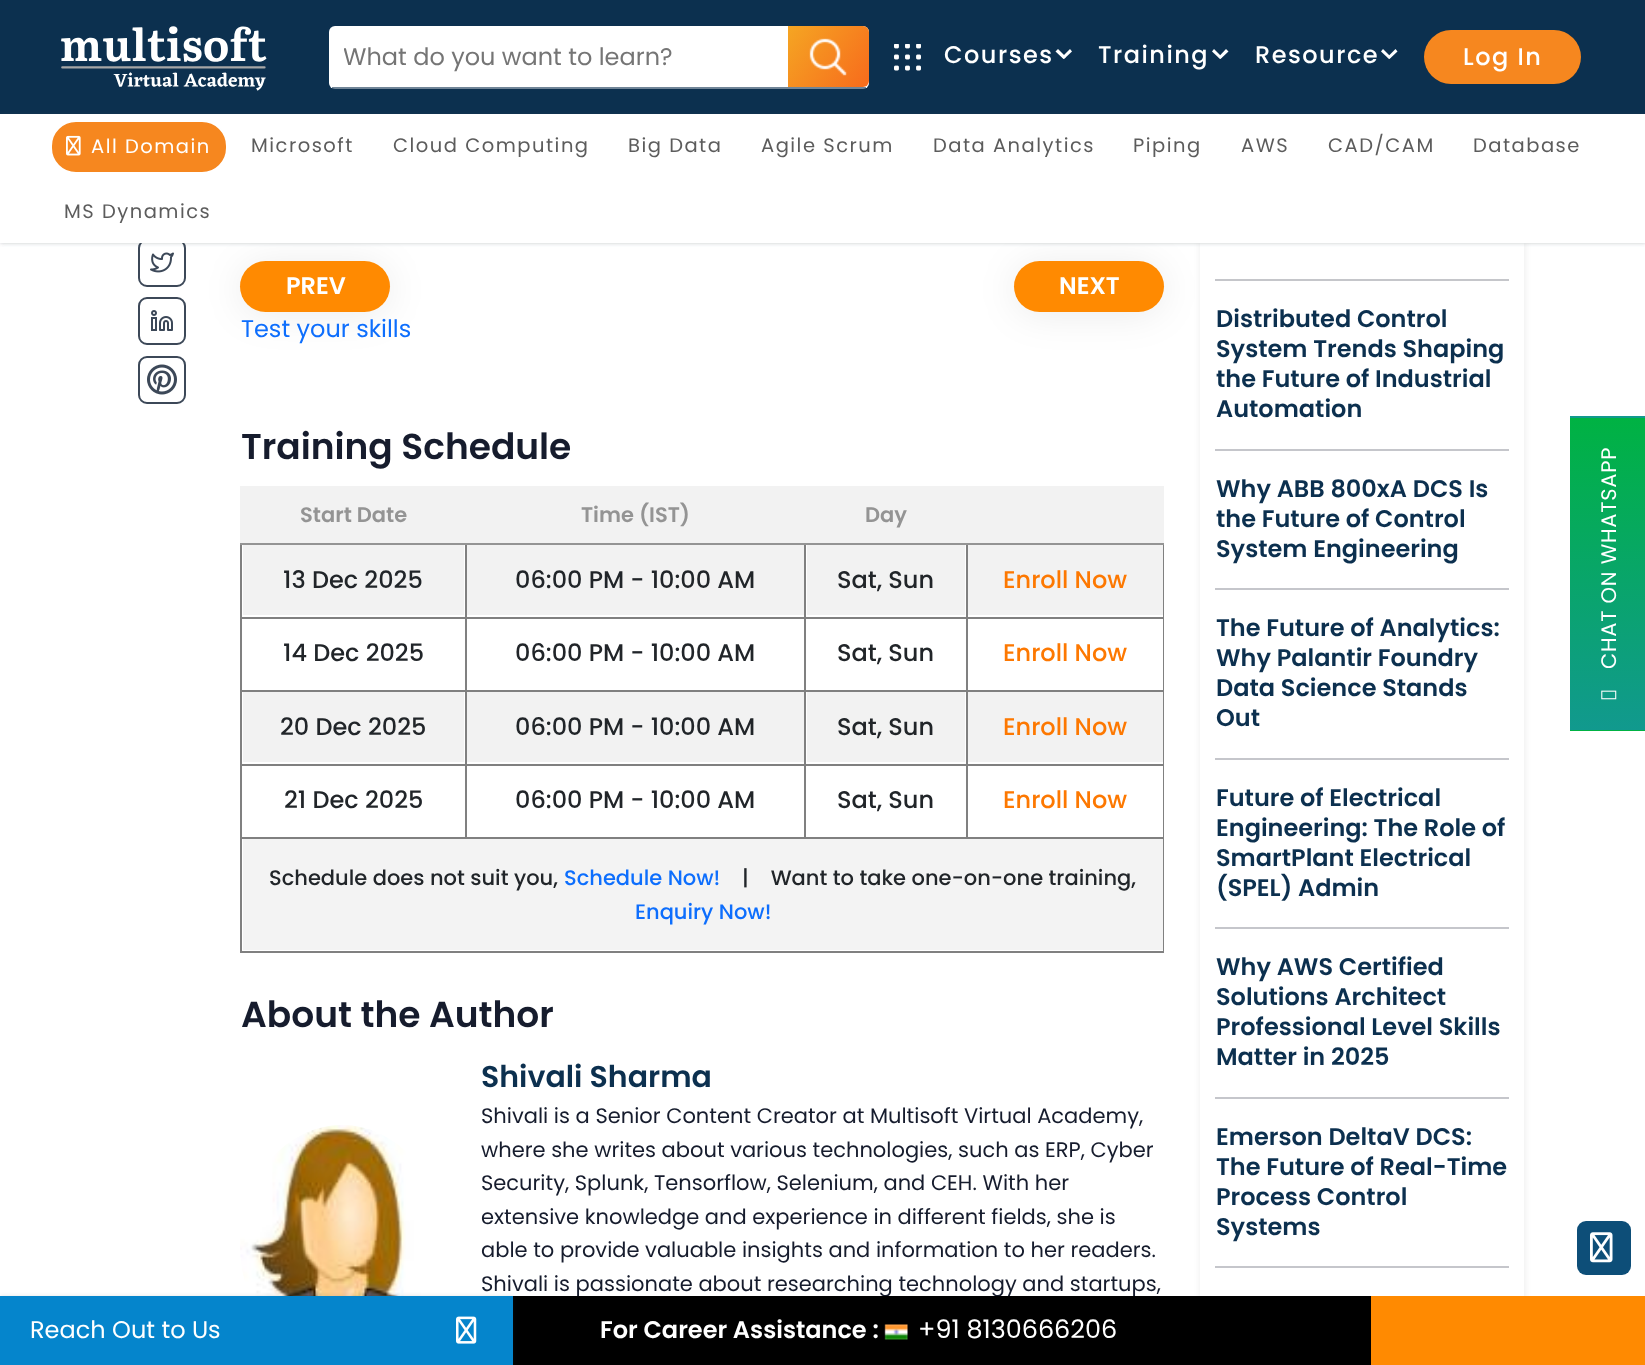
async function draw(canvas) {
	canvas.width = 1645;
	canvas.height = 1365;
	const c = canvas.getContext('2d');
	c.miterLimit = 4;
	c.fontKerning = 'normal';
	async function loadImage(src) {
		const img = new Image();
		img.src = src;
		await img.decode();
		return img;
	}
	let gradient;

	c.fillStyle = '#fff';
	c.fillRect(0, 0, 1645, 1365);
	c.beginPath();
	c.roundRect(139, 240, 46, 46, 8);
	c.strokeStyle = '#3c4858';
	c.lineWidth = 2;
	c.stroke();
	c.fillStyle = '#3c485826';
	c.filter = 'blur(2px)';
	c.beginPath();
	c.rect(0, 0, 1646, 243);
	c.fill();
	c.filter = 'none';
	c.save();
	c.beginPath();
	c.moveTo(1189, 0);
	c.lineTo(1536, 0);
	c.lineTo(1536, 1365);
	c.lineTo(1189, 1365);
	c.closePath();
	c.moveTo(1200, -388);
	c.lineTo(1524, -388);
	c.lineTo(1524, 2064);
	c.lineTo(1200, 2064);
	c.closePath();
	c.clip('evenodd');
	c.fillStyle = '#e2e2e2';
	c.filter = 'blur(4px)';
	c.beginPath();
	c.rect(1202, -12, 321, 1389);
	c.fill();
	c.filter = 'none';
	c.restore();
	c.fillStyle = '#0c304f';
	c.fillRect(0, 0, 1645, 114);
	c.drawImage(await loadImage('img1.png'), 61, 26, 206, 65);
	c.fillStyle = '#fff';
	c.beginPath();
	c.roundRect(329, 26, 540, 63, 6);
	c.fill();
	c.fillStyle = '#0c304f96';
	c.fillRect(332, 87, 534, 2);
	c.save();
	c.beginPath();
	c.rect(344, 38, 406, 37);
	c.clip();
	c.font = '24px Poppins';
	c.fillStyle = '#757575';
	c.fillText('What do you want to learn?', 343, 65);
	c.restore();
	gradient = c.createLinearGradient(787, 26, 869, 86);
	gradient.addColorStop(0, '#f5a623');
	gradient.addColorStop(1, '#f76b1c');
	c.fillStyle = gradient;
	c.beginPath();
	c.roundRect(788, 26, 81, 61, [0, 6, 6, 0]);
	c.fill();
	c.drawImage(await loadImage('img2.png'), 809, 38, 38, 38);
	c.drawImage(await loadImage('img3.png'), 894, 44, 27, 27);
	c.letterSpacing = '1.5px';
	c.font = '500 24px Poppins';
	c.fillStyle = '#fff';
	c.fillText('Courses', 944, 63);
	c.beginPath();
	c.moveTo(1070, 49);
	c.lineTo(1072, 51.5);
	c.lineTo(1064, 59);
	c.lineTo(1062, 57);
	c.closePath();
	c.fill();
	c.beginPath();
	c.moveTo(1058, 49);
	c.lineTo(1066, 57);
	c.lineTo(1063.5, 59);
	c.lineTo(1055.5, 51.5);
	c.closePath();
	c.fill();
	c.fillText('Training', 1098, 63);
	c.beginPath();
	c.moveTo(1226, 49);
	c.lineTo(1228.5, 51.5);
	c.lineTo(1220.5, 59);
	c.lineTo(1218.5, 57);
	c.closePath();
	c.fill();
	c.beginPath();
	c.moveTo(1214, 49);
	c.lineTo(1222, 57);
	c.lineTo(1220, 59);
	c.lineTo(1212, 51.5);
	c.closePath();
	c.fill();
	c.fillText('Resource', 1255, 63);
	c.beginPath();
	c.moveTo(1395.5, 49);
	c.lineTo(1397.5, 51.5);
	c.lineTo(1389.5, 59);
	c.lineTo(1387.5, 57);
	c.closePath();
	c.fill();
	c.beginPath();
	c.moveTo(1383, 49);
	c.lineTo(1391, 57);
	c.lineTo(1389, 59);
	c.lineTo(1381, 51.5);
	c.closePath();
	c.fill();
	c.fillStyle = '#f6871f';
	c.beginPath();
	c.roundRect(1424, 30, 157, 54, 27);
	c.fill();
	c.fillStyle = '#fff';
	c.fillText('Log In', 1463, 65);
	c.fillStyle = '#3c485826';
	c.filter = 'blur(2px)';
	c.beginPath();
	c.rect(0, 114, 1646, 129);
	c.fill();
	c.filter = 'none';
	c.beginPath();
	c.roundRect(139, 298, 46, 46, 8);
	c.stroke();
	c.beginPath();
	c.roundRect(139, 357, 46, 46, 8);
	c.stroke();
	c.fillStyle = '#00000014';
	c.filter = 'blur(19px)';
	c.beginPath();
	c.roundRect(240, 264, 150, 51, 25.5);
	c.fill();
	c.filter = 'none';
	c.filter = 'blur(19px)';
	c.beginPath();
	c.roundRect(1014, 264, 150, 51, 25.5);
	c.fill();
	c.filter = 'none';
	c.fillStyle = '#fff';
	c.fillRect(0, 114, 1645, 129);
	c.fillStyle = '#f6871f';
	c.beginPath();
	c.roundRect(51, 121, 176, 52, 25);
	c.fill();
	c.strokeStyle = '#fff';
	c.stroke();
	c.drawImage(await loadImage('img4.png'), 66, 135, 15, 21);
	c.font = '19.5px Poppins';
	c.fillStyle = '#fff';
	c.fillText('All Domain', 91, 153);
	c.fillStyle = '#5c5c5c';
	for (const [text, x, y] of [
		['Microsoft', 251, 152],
		['Cloud Computing', 393, 152],
		['Big Data', 628, 152],
		['Agile Scrum', 761, 152],
		['Data Analytics', 933, 152],
		['Piping', 1133, 152],
		['AWS', 1241, 152],
		['CAD/CAM', 1328, 152],
		['Database', 1473, 152],
		['MS Dynamics', 64, 218],
	]) {
		c.fillText(text, x, y);
	}
	c.drawImage(await loadImage('img5.png'), 150, 252, 24, 21);
	c.drawImage(await loadImage('img6.png'), 151, 310, 22, 21);
	c.drawImage(await loadImage('img7.png'), 147, 364, 30, 31);
	c.fillStyle = '#ff8a01';
	c.beginPath();
	c.roundRect(240, 261, 150, 51, 25.5);
	c.fill();
	c.letterSpacing = '0px';
	c.font = '600 24px Poppins';
	c.fillStyle = '#fff';
	c.fillText('PREV', 286, 294);
	c.fillStyle = '#ff8a01';
	c.beginPath();
	c.roundRect(1014, 261, 150, 51, 25.5);
	c.fill();
	c.fillStyle = '#fff';
	c.fillText('NEXT', 1059, 294);
	c.font = '24px Poppins';
	c.fillStyle = '#0d6efd';
	c.fillText('Test your skills', 241, 337);
	c.font = '600 36px Poppins';
	c.fillStyle = '#161c2d';
	c.fillText('Training Schedule', 241, 459);
	for (const [x, y, w, h, color] of [
		[240, 486, 924, 2, '#f2f2f2'],
		[1163, 486, 1, 57, '#f2f2f2'],
		[240, 486, 2, 57, '#f2f2f2'],
		[242, 488, 921, 55, '#f2f2f2'],
	]) {
		c.fillStyle = color;
		c.fillRect(x, y, w, h);
	}
	c.font = '600 21px Poppins';
	c.fillStyle = '#949494';
	for (const [text, x, y] of [
		['Start Date', 300, 522],
		['Time (IST)', 581, 522],
		['Day', 865, 522],
	]) {
		c.fillText(text, x, y);
	}
	for (const [x, y, w, h, color] of [
		[966, 617, 198, 2, '#808080'],
		[966, 690, 198, 2, '#808080'],
		[966, 764, 198, 2, '#808080'],
		[240, 837, 924, 2, '#808080'],
		[966, 764, 2, 75, '#808080'],
		[804, 764, 164, 2, '#808080'],
		[966, 690, 2, 75, '#808080'],
		[804, 690, 164, 2, '#808080'],
		[966, 617, 2, 75, '#808080'],
		[804, 617, 164, 2, '#808080'],
		[804, 764, 2, 75, '#808080'],
		[465, 764, 341, 2, '#808080'],
		[804, 690, 2, 75, '#808080'],
		[465, 690, 341, 2, '#808080'],
		[804, 617, 2, 75, '#808080'],
		[465, 617, 341, 2, '#808080'],
		[465, 764, 2, 75, '#808080'],
		[240, 764, 227, 2, '#808080'],
		[465, 690, 2, 75, '#808080'],
		[240, 690, 227, 2, '#808080'],
		[465, 617, 2, 75, '#808080'],
		[240, 617, 227, 2, '#808080'],
		[465, 543, 2, 75, '#808080'],
		[804, 543, 2, 75, '#808080'],
		[966, 543, 2, 75, '#808080'],
		[1163, 837, 1, 116, '#808080'],
		[240, 951, 924, 2, '#808080'],
		[240, 837, 2, 116, '#808080'],
		[240, 764, 2, 75, '#808080'],
		[240, 690, 2, 75, '#808080'],
		[240, 543, 2, 149, '#808080'],
		[1163, 764, 1, 75, '#808080'],
		[1163, 690, 1, 75, '#808080'],
		[1163, 543, 1, 149, '#808080'],
		[240, 543, 924, 2, '#949494'],
		[243, 545, 221, 70, '#f2f2f2'],
	]) {
		c.fillStyle = color;
		c.fillRect(x, y, w, h);
	}
	c.font = '500 24px Poppins';
	c.fillStyle = '#212529';
	c.fillText('13 Dec 2025', 283, 588);
	c.fillStyle = '#f2f2f2';
	c.fillRect(467, 545, 337, 70);
	c.fillStyle = '#212529';
	c.fillText('06:00 PM - 10:00 AM', 515, 588);
	c.fillStyle = '#f2f2f2';
	c.fillRect(807, 545, 158, 70);
	c.fillStyle = '#212529';
	c.fillText('Sat, Sun', 837, 588);
	c.fillStyle = '#f2f2f2';
	c.fillRect(968, 545, 195, 70);
	c.fillStyle = '#fd7801';
	c.fillText('Enroll Now', 1003, 588);
	c.fillStyle = '#212529';
	for (const [text, x, y] of [
		['14 Dec 2025', 283, 661],
		['06:00 PM - 10:00 AM', 515, 661],
		['Sat, Sun', 837, 661],
	]) {
		c.fillText(text, x, y);
	}
	c.fillStyle = '#fd7801';
	c.fillText('Enroll Now', 1003, 661);
	c.fillStyle = '#f2f2f2';
	c.fillRect(243, 692, 221, 70);
	c.fillStyle = '#212529';
	c.fillText('20 Dec 2025', 280, 735);
	c.fillStyle = '#f2f2f2';
	c.fillRect(467, 692, 337, 70);
	c.fillStyle = '#212529';
	c.fillText('06:00 PM - 10:00 AM', 515, 735);
	c.fillStyle = '#f2f2f2';
	c.fillRect(807, 692, 158, 70);
	c.fillStyle = '#212529';
	c.fillText('Sat, Sun', 837, 735);
	c.fillStyle = '#f2f2f2';
	c.fillRect(968, 692, 195, 70);
	c.fillStyle = '#fd7801';
	c.fillText('Enroll Now', 1003, 735);
	c.fillStyle = '#212529';
	for (const [text, x, y] of [
		['21 Dec 2025', 284, 808],
		['06:00 PM - 10:00 AM', 515, 808],
		['Sat, Sun', 837, 808],
	]) {
		c.fillText(text, x, y);
	}
	c.fillStyle = '#fd7801';
	c.fillText('Enroll Now', 1003, 808);
	c.fillStyle = '#f3f3f3';
	c.fillRect(243, 839, 920, 111);
	c.font = '500 21px Poppins';
	c.fillStyle = '#212529';
	c.fillText('Schedule does not suit you,', 269, 885);
	c.fillStyle = '#0d6efd';
	c.fillText('Schedule Now!', 564, 885);
	c.fillStyle = '#212529';
	c.fillText('|    Want to take one-on-one training,', 742, 885);
	c.fillStyle = '#0d6efd';
	c.fillText('Enquiry Now!', 635, 919);
	c.font = '600 36px Poppins';
	c.fillStyle = '#161c2d';
	c.fillText('About the Author', 241, 1027);
	c.drawImage(await loadImage('img8.png'), 240, 1125, 192, 171);
	c.font = '600 30px Poppins';
	c.fillStyle = '#0c304f';
	c.fillText('Shivali Sharma', 481, 1087);
	c.font = '21px Poppins';
	c.fillStyle = '#161c2d';
	for (const [text, x, y] of [
		['Shivali is a Senior Content Creator at Multisoft Virtual Academy,', 481, 1123],
		['where she writes about various technologies, such as ERP, Cyber', 481, 1157],
		['Security, Splunk, Tensorflow, Selenium, and CEH. With her', 481, 1190],
		['extensive knowledge and experience in different fields, she is', 481, 1224],
		['able to provide valuable insights and information to her readers.', 481, 1257],
		['Shivali is passionate about researching technology and startups,', 481, 1291],
	]) {
		c.fillText(text, x, y);
	}
	c.fillStyle = '#c5c6ca';
	c.fillRect(1215, 279, 294, 2);
	c.font = '600 24px Poppins';
	c.fillStyle = '#0c304f';
	for (const [text, x, y] of [
		['Distributed Control', 1216, 327],
		['System Trends Shaping', 1216, 357],
		['the Future of Industrial', 1216, 387],
		['Automation', 1216, 417],
	]) {
		c.fillText(text, x, y);
	}
	c.fillStyle = '#c5c6cb';
	c.fillRect(1215, 449, 294, 2);
	c.fillStyle = '#0c304f';
	for (const [text, x, y] of [
		['Why ABB 800xA DCS Is', 1216, 497],
		['the Future of Control', 1216, 527],
		['System Engineering', 1216, 557],
	]) {
		c.fillText(text, x, y);
	}
	c.fillStyle = '#c5c6cb';
	c.fillRect(1215, 588, 294, 2);
	c.fillStyle = '#0c304f';
	for (const [text, x, y] of [
		['The Future of Analytics:', 1216, 636],
		['Why Palantir Foundry', 1216, 666],
		['Data Science Stands', 1216, 696],
		['Out', 1216, 726],
	]) {
		c.fillText(text, x, y);
	}
	c.fillStyle = '#c5c6cb';
	c.fillRect(1215, 758, 294, 2);
	c.fillStyle = '#0c304f';
	for (const [text, x, y] of [
		['Future of Electrical', 1216, 806],
		['Engineering: The Role of', 1216, 836],
		['SmartPlant Electrical', 1216, 866],
		['(SPEL) Admin', 1216, 896],
	]) {
		c.fillText(text, x, y);
	}
	c.fillStyle = '#c5c6cb';
	c.fillRect(1215, 927, 294, 2);
	c.fillStyle = '#0c304f';
	for (const [text, x, y] of [
		['Why AWS Certified', 1216, 975],
		['Solutions Architect', 1216, 1005],
		['Professional Level Skills', 1216, 1035],
		['Matter in 2025', 1216, 1065],
	]) {
		c.fillText(text, x, y);
	}
	c.fillStyle = '#c5c6cb';
	c.fillRect(1215, 1097, 294, 2);
	c.fillStyle = '#0c304f';
	for (const [text, x, y] of [
		['Emerson DeltaV DCS:', 1216, 1145],
		['The Future of Real-Time', 1216, 1175],
		['Process Control', 1216, 1205],
		['Systems', 1216, 1235],
	]) {
		c.fillText(text, x, y);
	}
	c.fillStyle = '#c5c6cb';
	c.fillRect(1215, 1266, 294, 2);
	gradient = c.createLinearGradient(1608, 1042, 1608, 730);
	gradient.addColorStop(0, '#11998e');
	gradient.addColorStop(1, '#00b243');
	c.fillStyle = gradient;
	c.fillRect(1570, 730, 75, 1);
	gradient = c.createLinearGradient(1608, 730, 1608, 418);
	gradient.addColorStop(0, '#11998e');
	gradient.addColorStop(1, '#00b243');
	c.fillStyle = gradient;
	c.fillRect(1570, 418, 75, 312);
	gradient = c.createLinearGradient(1608, 418, 1608, 106);
	gradient.addColorStop(0, '#11998e');
	gradient.addColorStop(1, '#00b243');
	c.fillStyle = gradient;
	c.fillRect(1570, 416, 75, 2);
	c.letterSpacing = '0.75px';
	c.font = '21px Poppins';
	c.fillStyle = '#fff';
	c.save();
	c.translate(1616, 669);
	c.rotate(-90 * Math.PI / 180);
	c.fillText('CHAT ON WHATSAPP', 0, 0);
	c.restore();
	c.drawImage(await loadImage('img9.png'), 1601, 690, 16, 10);
	c.fillStyle = '#0d4e78';
	c.beginPath();
	c.roundRect(1577, 1221, 54, 54, 9);
	c.fill();
	c.drawImage(await loadImage('img10.png'), 1590, 1232, 23, 31);
	c.fillStyle = '#000';
	c.fillRect(513, 1296, 858, 69);
	c.fillStyle = '#3c485826';
	c.filter = 'blur(2px)';
	c.beginPath();
	c.rect(0, 1296, 513, 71);
	c.fill();
	c.filter = 'none';
	c.fillStyle = '#0585cc';
	c.fillRect(0, 1296, 513, 69);
	c.letterSpacing = '0px';
	c.font = '24px Poppins';
	c.fillStyle = '#fff';
	c.fillText('Reach Out to Us', 30, 1338);
	c.drawImage(await loadImage('img11.png'), 456, 1316, 21, 28);
	c.font = '600 24px Poppins';
	c.fillText('For Career Assistance :', 600, 1338);
	c.drawImage(await loadImage('img12.png'), 884, 1324, 24, 16);
	c.font = '25.5px Poppins';
	c.fillText('+91 8130666206', 918, 1338);
	c.fillStyle = '#ff8a01';
	c.fillRect(1371, 1296, 274, 69);
}

draw(document.querySelector('canvas'));
